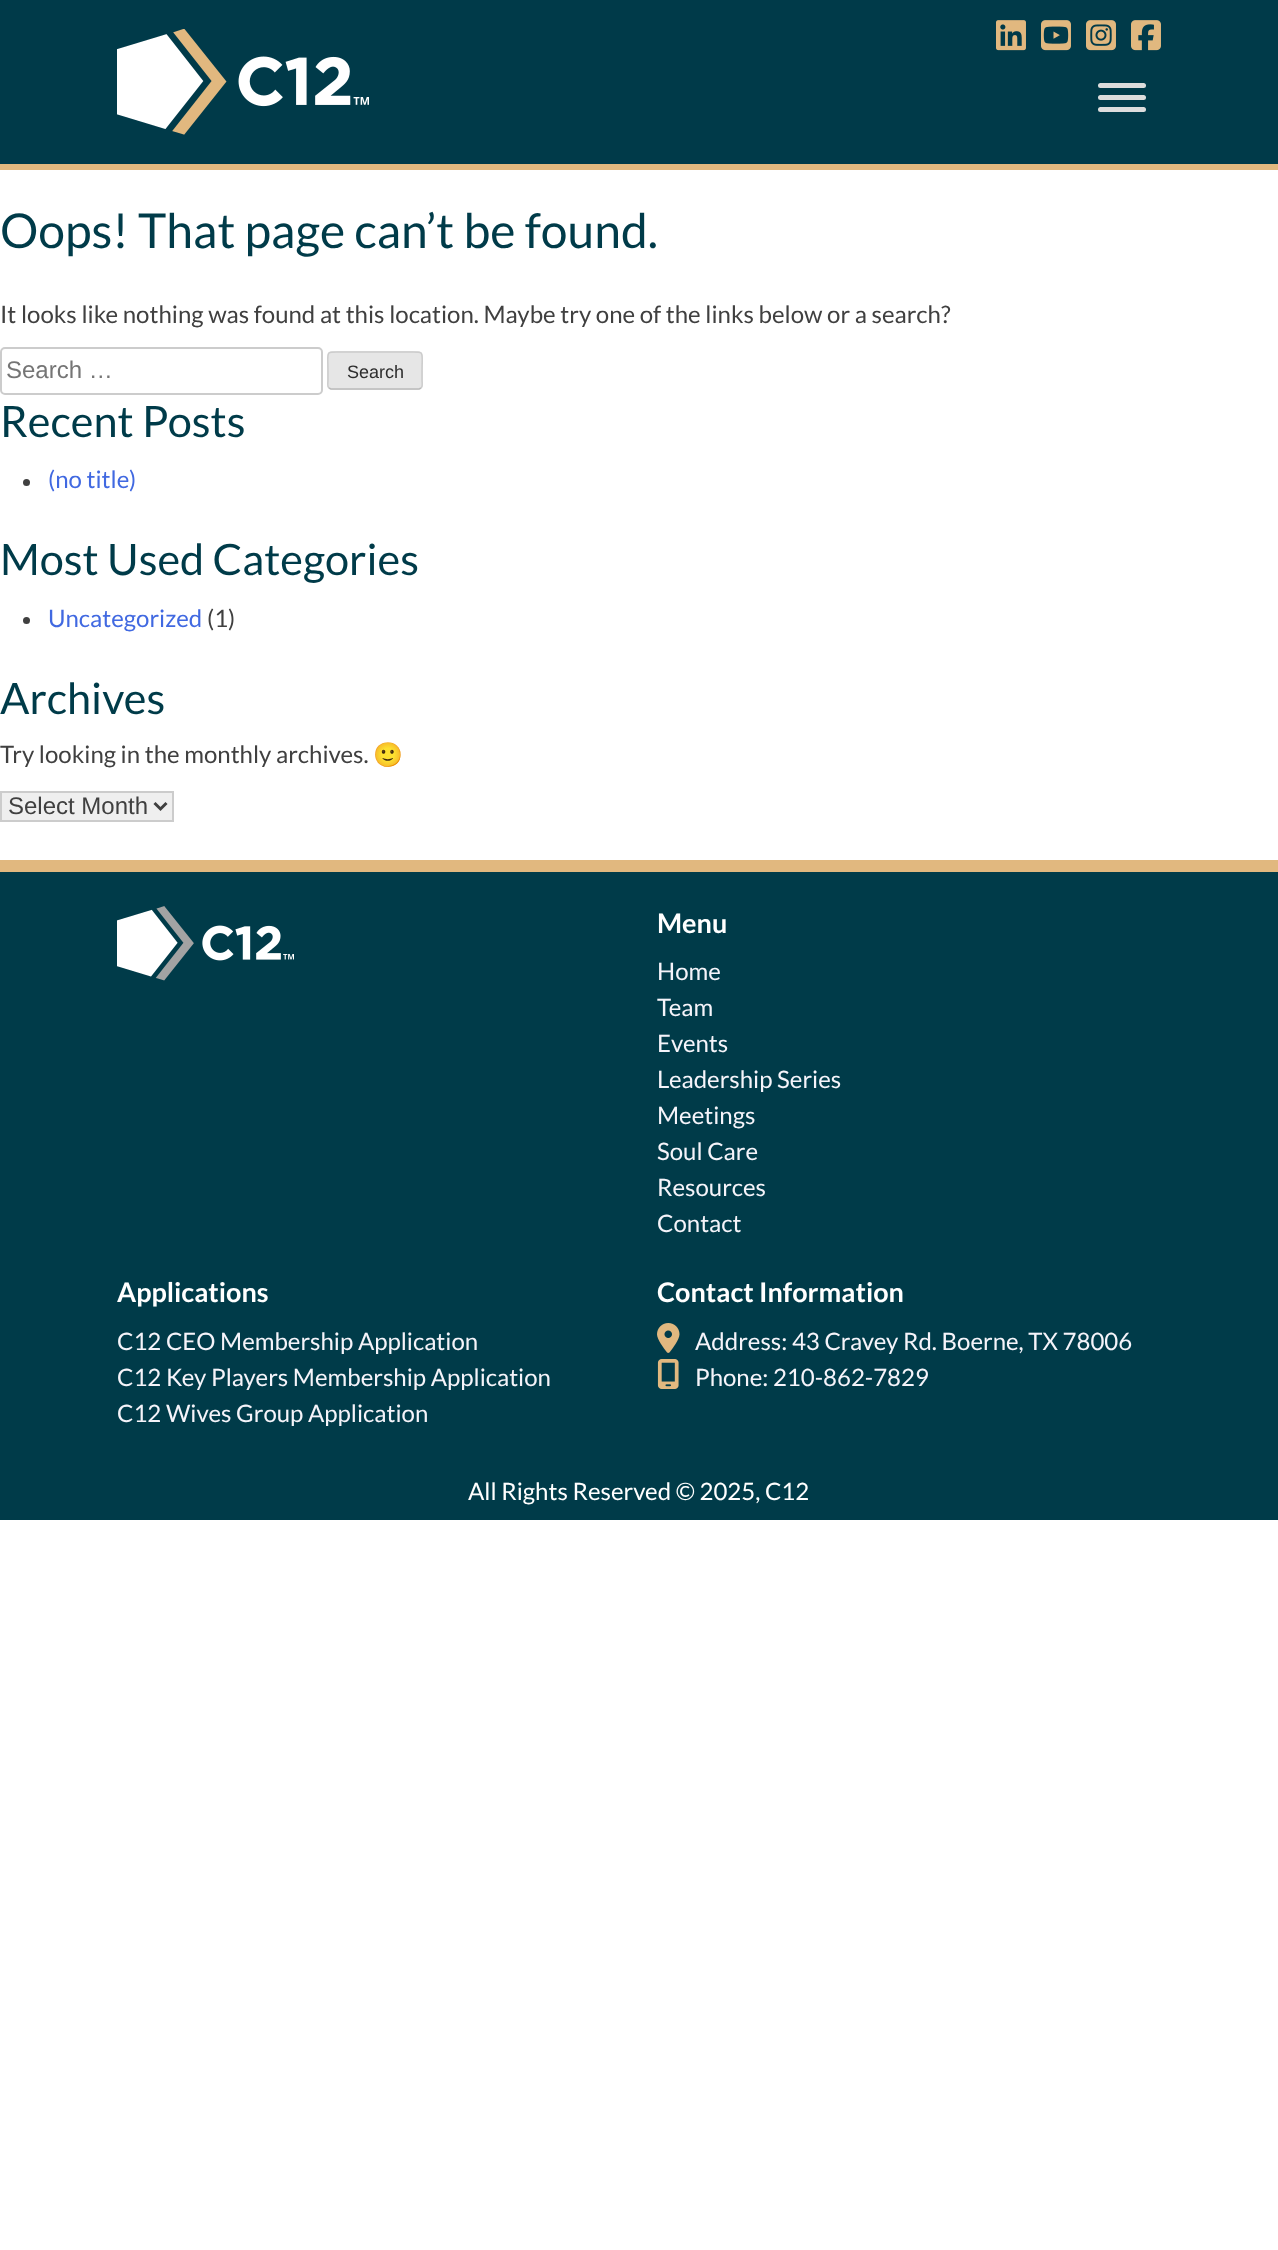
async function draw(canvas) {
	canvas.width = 1278;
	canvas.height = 2250;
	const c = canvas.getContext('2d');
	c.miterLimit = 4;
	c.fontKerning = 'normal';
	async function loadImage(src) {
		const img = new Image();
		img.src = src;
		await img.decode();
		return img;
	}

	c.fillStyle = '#fff';
	c.fillRect(0, 0, 1278, 2250);
	c.fillStyle = '#003a49';
	c.fillRect(0, 0, 1278, 164);
	c.fillStyle = '#e1b87f';
	c.fillRect(0, 164, 1278, 6);
	c.drawImage(await loadImage('img1.png'), 996, 20, 30, 31);
	c.drawImage(await loadImage('img2.png'), 1041, 20, 30, 31);
	c.drawImage(await loadImage('img3.png'), 1086, 20, 30, 31);
	c.drawImage(await loadImage('img4.png'), 1131, 20, 30, 31);
	c.drawImage(await loadImage('img5.png'), 117, 29, 252, 106);
	c.fillStyle = '#ddd';
	c.beginPath();
	c.roundRect(1098, 83, 48, 5, 2.5);
	c.fill();
	c.beginPath();
	c.roundRect(1098, 95, 48, 5, 2.5);
	c.fill();
	c.beginPath();
	c.roundRect(1098, 107, 48, 5, 2.5);
	c.fill();
	c.font = '48px Lato';
	c.fillStyle = '#003b49';
	c.fillText('Oops! That page can’t be found.', 0, 248);
	c.font = '24px Lato';
	c.fillStyle = '#404040';
	c.fillText('It looks like nothing was found at this location. Maybe try one of the links below or a search?', 0, 323);
	c.beginPath();
	c.roundRect(1, 348, 321, 46, 4);
	c.strokeStyle = '#ccc';
	c.lineWidth = 2;
	c.stroke();
	c.font = '24px Liberation Sans';
	c.fillStyle = '#757575';
	c.fillText('Search …', 6, 378);
	c.fillStyle = '#e6e6e6';
	c.beginPath();
	c.roundRect(327, 351, 96, 39, 5);
	c.fill();
	c.beginPath();
	c.moveTo(421, 388);
	c.lineTo(419, 389);
	c.lineTo(331, 389);
	c.lineTo(329, 388);
	c.strokeStyle = '#bbb';
	c.lineWidth = 1.5;
	c.stroke();
	c.beginPath();
	c.moveTo(329, 388);
	c.bezierCurveTo(327, 386.5, 328, 382.5, 328, 380.5);
	c.lineTo(328, 370.5);
	c.bezierCurveTo(328, 349, 324, 352, 346, 352);
	c.lineTo(404, 352);
	c.bezierCurveTo(426, 352, 422, 349, 422, 370.5);
	c.lineTo(422, 380.5);
	c.bezierCurveTo(422, 382.5, 423, 386.5, 421, 388);
	c.strokeStyle = '#ccc';
	c.stroke();
	c.font = '18px Liberation Sans';
	c.fillStyle = '#2e2e2e';
	c.fillText('Search', 347, 378);
	c.font = '43.25px Lato';
	c.fillStyle = '#003b49';
	c.fillText('Recent Posts', 0, 437);
	c.fillStyle = '#404040';
	c.beginPath();
	c.arc(26.5, 482.5, 3.5, 0, 2 * Math.PI);
	c.fill();
	c.font = '24px Lato';
	c.fillStyle = '#4169e1';
	c.fillText('(no title)', 48, 488);
	c.font = '43.25px Lato';
	c.fillStyle = '#003b49';
	c.fillText('Most Used Categories', 0, 575);
	c.fillStyle = '#404040';
	c.beginPath();
	c.arc(26.5, 620.5, 3.5, 0, 2 * Math.PI);
	c.fill();
	c.font = '24px Lato';
	c.fillStyle = '#4169e1';
	c.fillText('Uncategorized', 48, 627);
	c.fillStyle = '#404040';
	c.fillText('(1)', 207, 627);
	c.font = '43.25px Lato';
	c.fillStyle = '#003b49';
	c.fillText('Archives', 0, 714);
	c.font = '24px Lato';
	c.fillStyle = '#404040';
	c.fillText('Try looking in the monthly archives.', 0, 763);
	c.font = '24px Noto Color Emoji';
	c.fillText('🙂', 373, 763);
	c.fillStyle = '#efefef';
	c.beginPath();
	c.rect(1, 792, 172, 29);
	c.fill();
	c.lineWidth = 2;
	c.stroke();
	c.beginPath();
	c.moveTo(154.5, 803);
	c.lineTo(160.5, 809);
	c.lineTo(166.5, 803);
	c.strokeStyle = '#404040';
	c.lineWidth = 3;
	c.stroke();
	c.font = '24px Liberation Sans';
	c.fillStyle = '#404040';
	c.fillText('Select Month', 8, 814);
	c.fillStyle = '#003b49';
	c.fillRect(0, 872, 1278, 648);
	c.fillStyle = '#e1b87f';
	c.fillRect(0, 860, 1278, 12);
	c.drawImage(await loadImage('img6.png'), 117, 906, 177, 75);
	c.font = 'bold 27px Lato';
	c.fillStyle = '#fff';
	c.fillText('Menu', 657, 933);
	c.font = '24px Lato';
	c.fillStyle = '#f5f4fa';
	for (const [text, x, y] of [
		['Home', 657, 980],
		['Team', 657, 1016],
		['Events', 657, 1052],
		['Leadership Series', 657, 1088],
		['Meetings', 657, 1124],
		['Soul Care', 657, 1160],
		['Resources', 657, 1196],
		['Contact', 657, 1232],
	]) {
		c.fillText(text, x, y);
	}
	c.font = 'bold 27px Lato';
	c.fillStyle = '#fff';
	c.fillText('Applications', 117, 1302);
	c.font = '24px Lato';
	c.fillStyle = '#f5f4fa';
	for (const [text, x, y] of [
		['C12 CEO Membership Application', 117, 1350],
		['C12 Key Players Membership Application', 117, 1386],
		['C12 Wives Group Application', 117, 1422],
	]) {
		c.fillText(text, x, y);
	}
	c.font = 'bold 27px Lato';
	c.fillStyle = '#fff';
	c.fillText('Contact Information', 657, 1302);
	c.drawImage(await loadImage('img7.png'), 657, 1323, 23, 30);
	c.font = '24px Lato';
	c.fillStyle = '#f5f4fa';
	c.fillText('Address: 43 Cravey Rd. Boerne, TX 78006', 695, 1350);
	c.drawImage(await loadImage('img8.png'), 657, 1359, 22, 30);
	c.fillText('Phone: 210-862-7829', 695, 1386);
	c.fillStyle = '#fff';
	c.fillText('All Rights Reserved © 2025, C12', 468, 1500);
}

draw(document.querySelector('canvas'));
